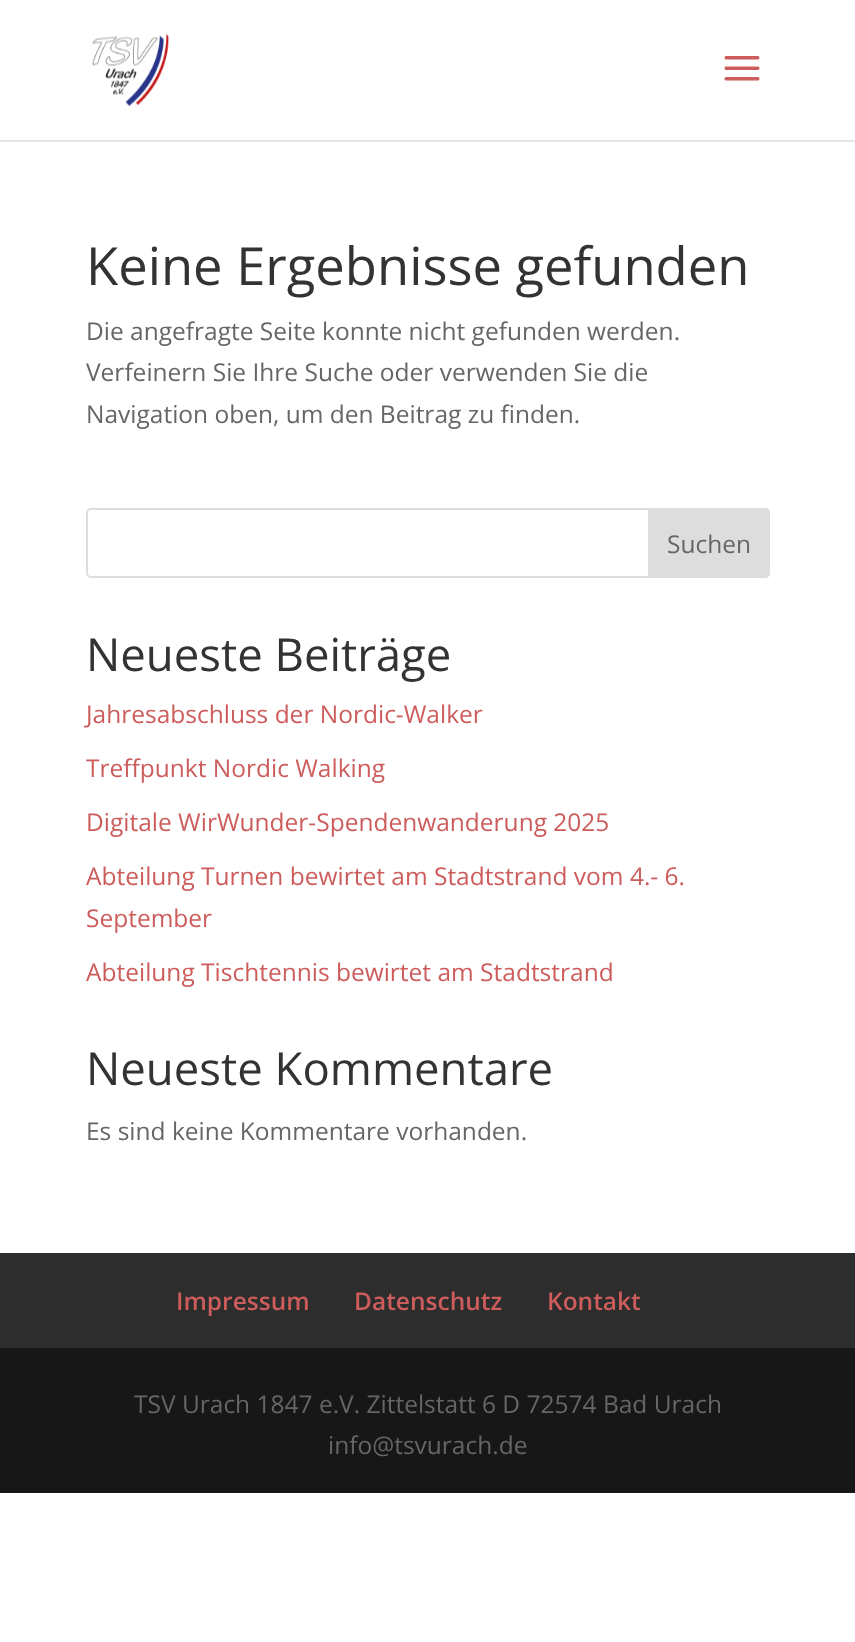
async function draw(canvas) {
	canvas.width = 855;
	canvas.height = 1642;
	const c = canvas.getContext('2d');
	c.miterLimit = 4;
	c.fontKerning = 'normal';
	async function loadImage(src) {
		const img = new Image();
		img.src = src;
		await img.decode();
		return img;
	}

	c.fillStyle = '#fff';
	c.fillRect(0, 0, 855, 1642);
	c.fillStyle = '#e6e6e6';
	c.beginPath();
	c.moveTo(0, 140);
	c.lineTo(0, 142);
	c.lineTo(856, 142);
	c.lineTo(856, 2);
	c.lineTo(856, 140);
	c.closePath();
	c.fill();
	c.drawImage(await loadImage('img1.png'), 92, 33, 77, 74);
	c.drawImage(await loadImage('img2.png'), 724, 56, 36, 25);
	c.font = '52.5px Open Sans';
	c.fillStyle = '#333';
	c.fillText('Keine Ergebnisse gefunden', 86, 285);
	c.font = '24.5px Open Sans';
	c.fillStyle = '#666';
	for (const [text, x, y] of [
		['Die angefragte Seite konnte nicht gefunden werden.', 86, 340],
		['Verfeinern Sie Ihre Suche oder verwenden Sie die', 86, 381],
		['Navigation oben, um den Beitrag zu finden.', 86, 423],
	]) {
		c.fillText(text, x, y);
	}
	c.beginPath();
	c.roundRect(87, 509, 682, 68, 4);
	c.strokeStyle = '#ddd';
	c.lineWidth = 2;
	c.stroke();
	c.fillStyle = '#ddd';
	c.beginPath();
	c.roundRect(649, 509, 120, 68, [0, 4, 4, 0]);
	c.fill();
	c.stroke();
	c.fillStyle = '#666';
	c.fillText('Suchen', 667, 553);
	c.font = '45.5px Open Sans';
	c.fillStyle = '#333';
	c.fillText('Neueste Beiträge', 86, 671);
	c.font = '24.5px Open Sans';
	c.fillStyle = '#cd5c5c';
	for (const [text, x, y] of [
		['Jahresabschluss der Nordic-Walker', 86, 723],
		['Treffpunkt Nordic Walking', 86, 777],
		['Digitale WirWunder-Spendenwanderung 2025', 86, 831],
		['Abteilung Turnen bewirtet am Stadtstrand vom 4.- 6.', 86, 885],
		['September', 86, 927],
		['Abteilung Tischtennis bewirtet am Stadtstrand', 86, 981],
	]) {
		c.fillText(text, x, y);
	}
	c.font = '45.5px Open Sans';
	c.fillStyle = '#333';
	c.fillText('Neueste Kommentare', 86, 1085);
	c.font = '24.5px Open Sans';
	c.fillStyle = '#666';
	c.fillText('Es sind keine Kommentare vorhanden.', 86, 1140);
	c.fillStyle = '#2d2d2d';
	c.fillRect(0, 1253, 855, 95);
	c.font = '600 24.5px Open Sans';
	c.fillStyle = '#cd5c5c';
	for (const [text, x, y] of [
		['Impressum', 176, 1310],
		['Datenschutz', 354, 1310],
		['Kontakt', 547, 1310],
	]) {
		c.fillText(text, x, y);
	}
	c.fillStyle = '#171717';
	c.fillRect(0, 1348, 855, 145);
	c.font = '24.5px Open Sans';
	c.fillStyle = '#666';
	c.fillText('TSV Urach 1847 e.V. Zittelstatt 6 D 72574 Bad Urach', 134, 1413);
	c.fillText('info@tsvurach.de', 328, 1454);
}

draw(document.querySelector('canvas'));
